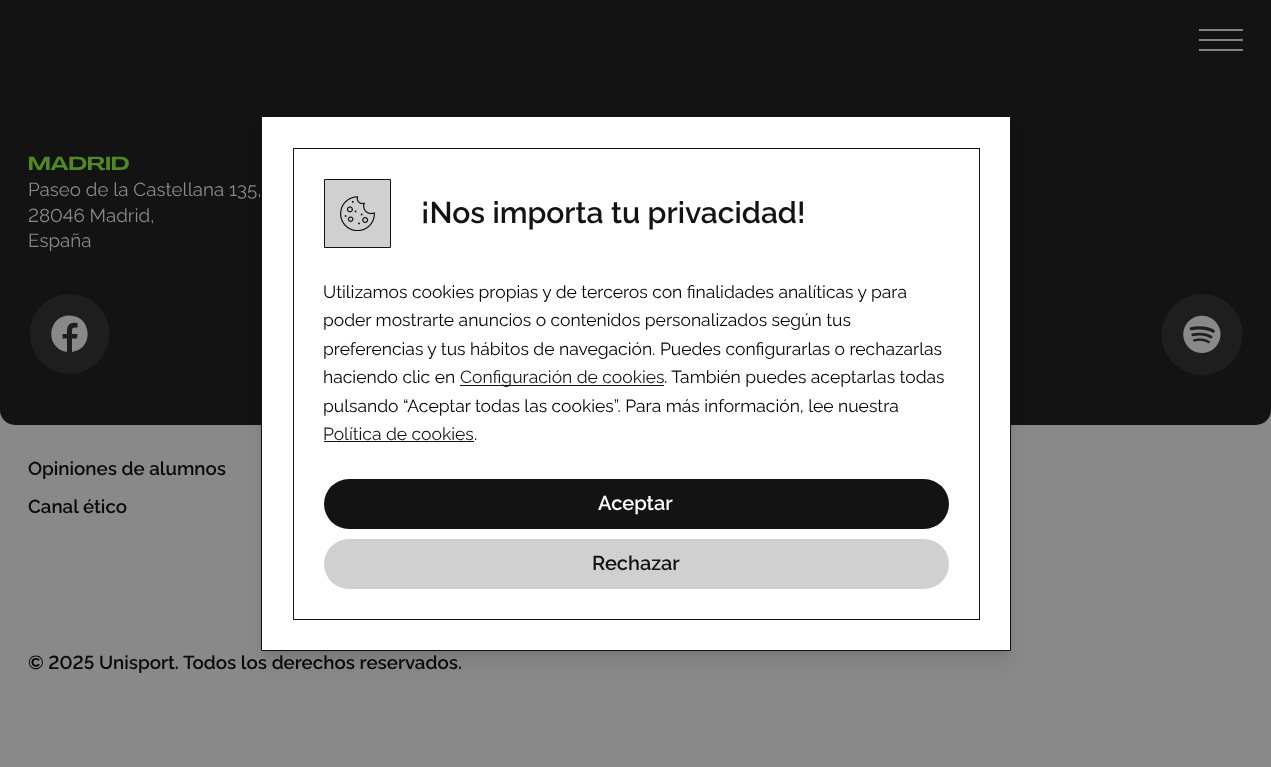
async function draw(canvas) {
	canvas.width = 1271;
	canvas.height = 767;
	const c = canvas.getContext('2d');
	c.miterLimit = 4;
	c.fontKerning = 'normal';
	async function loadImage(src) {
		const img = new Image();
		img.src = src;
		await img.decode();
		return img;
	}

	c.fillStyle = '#8a898a';
	c.fillRect(0, 0, 1271, 767);
	c.fillStyle = '#141314';
	c.beginPath();
	c.roundRect(0, -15, 1271, 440, 15);
	c.fill();
	for (const [x, y, w, h, color] of [
		[1199, 29, 44, 2, '#848384'],
		[1199, 39, 44, 2, '#848384'],
		[1199, 49, 44, 2, '#848384'],
	]) {
		c.fillStyle = color;
		c.fillRect(x, y, w, h);
	}
	c.font = 'bold 18.75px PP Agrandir';
	c.fillStyle = '#4f8924';
	c.fillText('MADRID', 28, 170);
	c.font = '18.75px Raleway';
	c.fillStyle = '#8a898a';
	c.fillText('Paseo de la Castellana 135,', 28, 196);
	c.font = '18.75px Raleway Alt';
	c.fillText('28046 Madrid,', 28, 222);
	c.font = '18.75px Raleway';
	c.fillText('España', 28, 247);
	c.fillStyle = '#1e1e1f';
	c.beginPath();
	c.arc(69.5, 334, 40, 0, 2 * Math.PI);
	c.fill();
	c.fillStyle = '#8a898a';
	c.beginPath();
	c.moveTo(69.5, 315.5);
	c.bezierCurveTo(47, 315.5, 44.5, 348.5, 67, 352);
	c.lineTo(67, 338.5);
	c.lineTo(62.5, 338.5);
	c.lineTo(62.5, 334);
	c.lineTo(67, 334);
	c.bezierCurveTo(67, 325, 68.5, 322, 77.5, 323);
	c.lineTo(77.5, 327.5);
	c.bezierCurveTo(71.5, 327.5, 72, 328, 72, 334);
	c.lineTo(77.5, 334);
	c.lineTo(77, 338.5);
	c.lineTo(72, 338.5);
	c.lineTo(72, 352);
	c.bezierCurveTo(94.5, 349, 92, 315.5, 69.5, 315.5);
	c.closePath();
	c.fill();
	c.drawImage(await loadImage('img1.png'), 1161, 294, 82, 81);
	c.font = '600 18.75px Raleway';
	c.fillStyle = '#0a0a0a';
	c.fillText('Opiniones de alumnos', 28, 475);
	c.fillText('Canal ético', 28, 513);
	c.font = '600 18.75px Raleway Alt';
	c.fillText('© 2025 Unisport. Todos los derechos reservados.', 28, 669);
	c.fillStyle = '#0000001a';
	c.filter = 'blur(4px)';
	c.beginPath();
	c.rect(266, 126, 740, 525);
	c.fill();
	c.filter = 'none';
	c.filter = 'blur(9.5px)';
	c.beginPath();
	c.rect(265, 133, 743, 527);
	c.fill();
	c.filter = 'none';
	c.fillStyle = '#fff';
	c.beginPath();
	c.rect(261.5, 116.5, 749, 534);
	c.fill();
	c.strokeStyle = '#141314';
	c.stroke();
	c.strokeRect(293.5, 148.5, 686, 471);
	c.fillStyle = '#d0d0d0';
	c.beginPath();
	c.rect(324.5, 179.5, 66, 68);
	c.fill();
	c.stroke();
	c.drawImage(await loadImage('img2.png'), 340, 196, 35, 35);
	c.font = '600 30px Raleway';
	c.fillStyle = '#141314';
	c.fillText('¡Nos importa tu privacidad!', 421, 223);
	c.font = '17.5px Raleway';
	c.fillStyle = '#000';
	for (const [text, x, y] of [
		['Utilizamos cookies propias y de terceros con finalidades analíticas y para', 323, 298],
		['poder mostrarte anuncios o contenidos personalizados según tus', 323, 326],
		['preferencias y tus hábitos de navegación. Puedes configurarlas o rechazarlas', 323, 355],
		['haciendo clic en', 323, 383],
	]) {
		c.fillText(text, x, y);
	}
	c.fillStyle = '#141314';
	c.fillRect(460, 385, 204, 1);
	c.fillText('Configuración de cookies', 460, 383);
	c.fillStyle = '#000';
	c.fillText('. También puedes aceptarlas todas', 664, 383);
	c.fillText('pulsando “Aceptar todas las cookies”. Para más información, lee nuestra', 323, 412);
	c.fillStyle = '#141314';
	c.fillText('Política de cookies', 323, 440);
	c.fillRect(324, 441, 150, 1);
	c.fillStyle = '#000';
	c.fillText('.', 474, 440);
	c.fillStyle = '#141314';
	c.beginPath();
	c.roundRect(324, 479, 625, 50, 25);
	c.fill();
	c.font = '600 20px Raleway';
	c.fillStyle = '#fff';
	c.fillText('Aceptar', 598, 510);
	c.fillStyle = '#d0d0d0';
	c.beginPath();
	c.roundRect(324, 539, 625, 50, 25);
	c.fill();
	c.fillStyle = '#141314';
	c.fillText('Rechazar', 592, 570);
}

draw(document.querySelector('canvas'));
